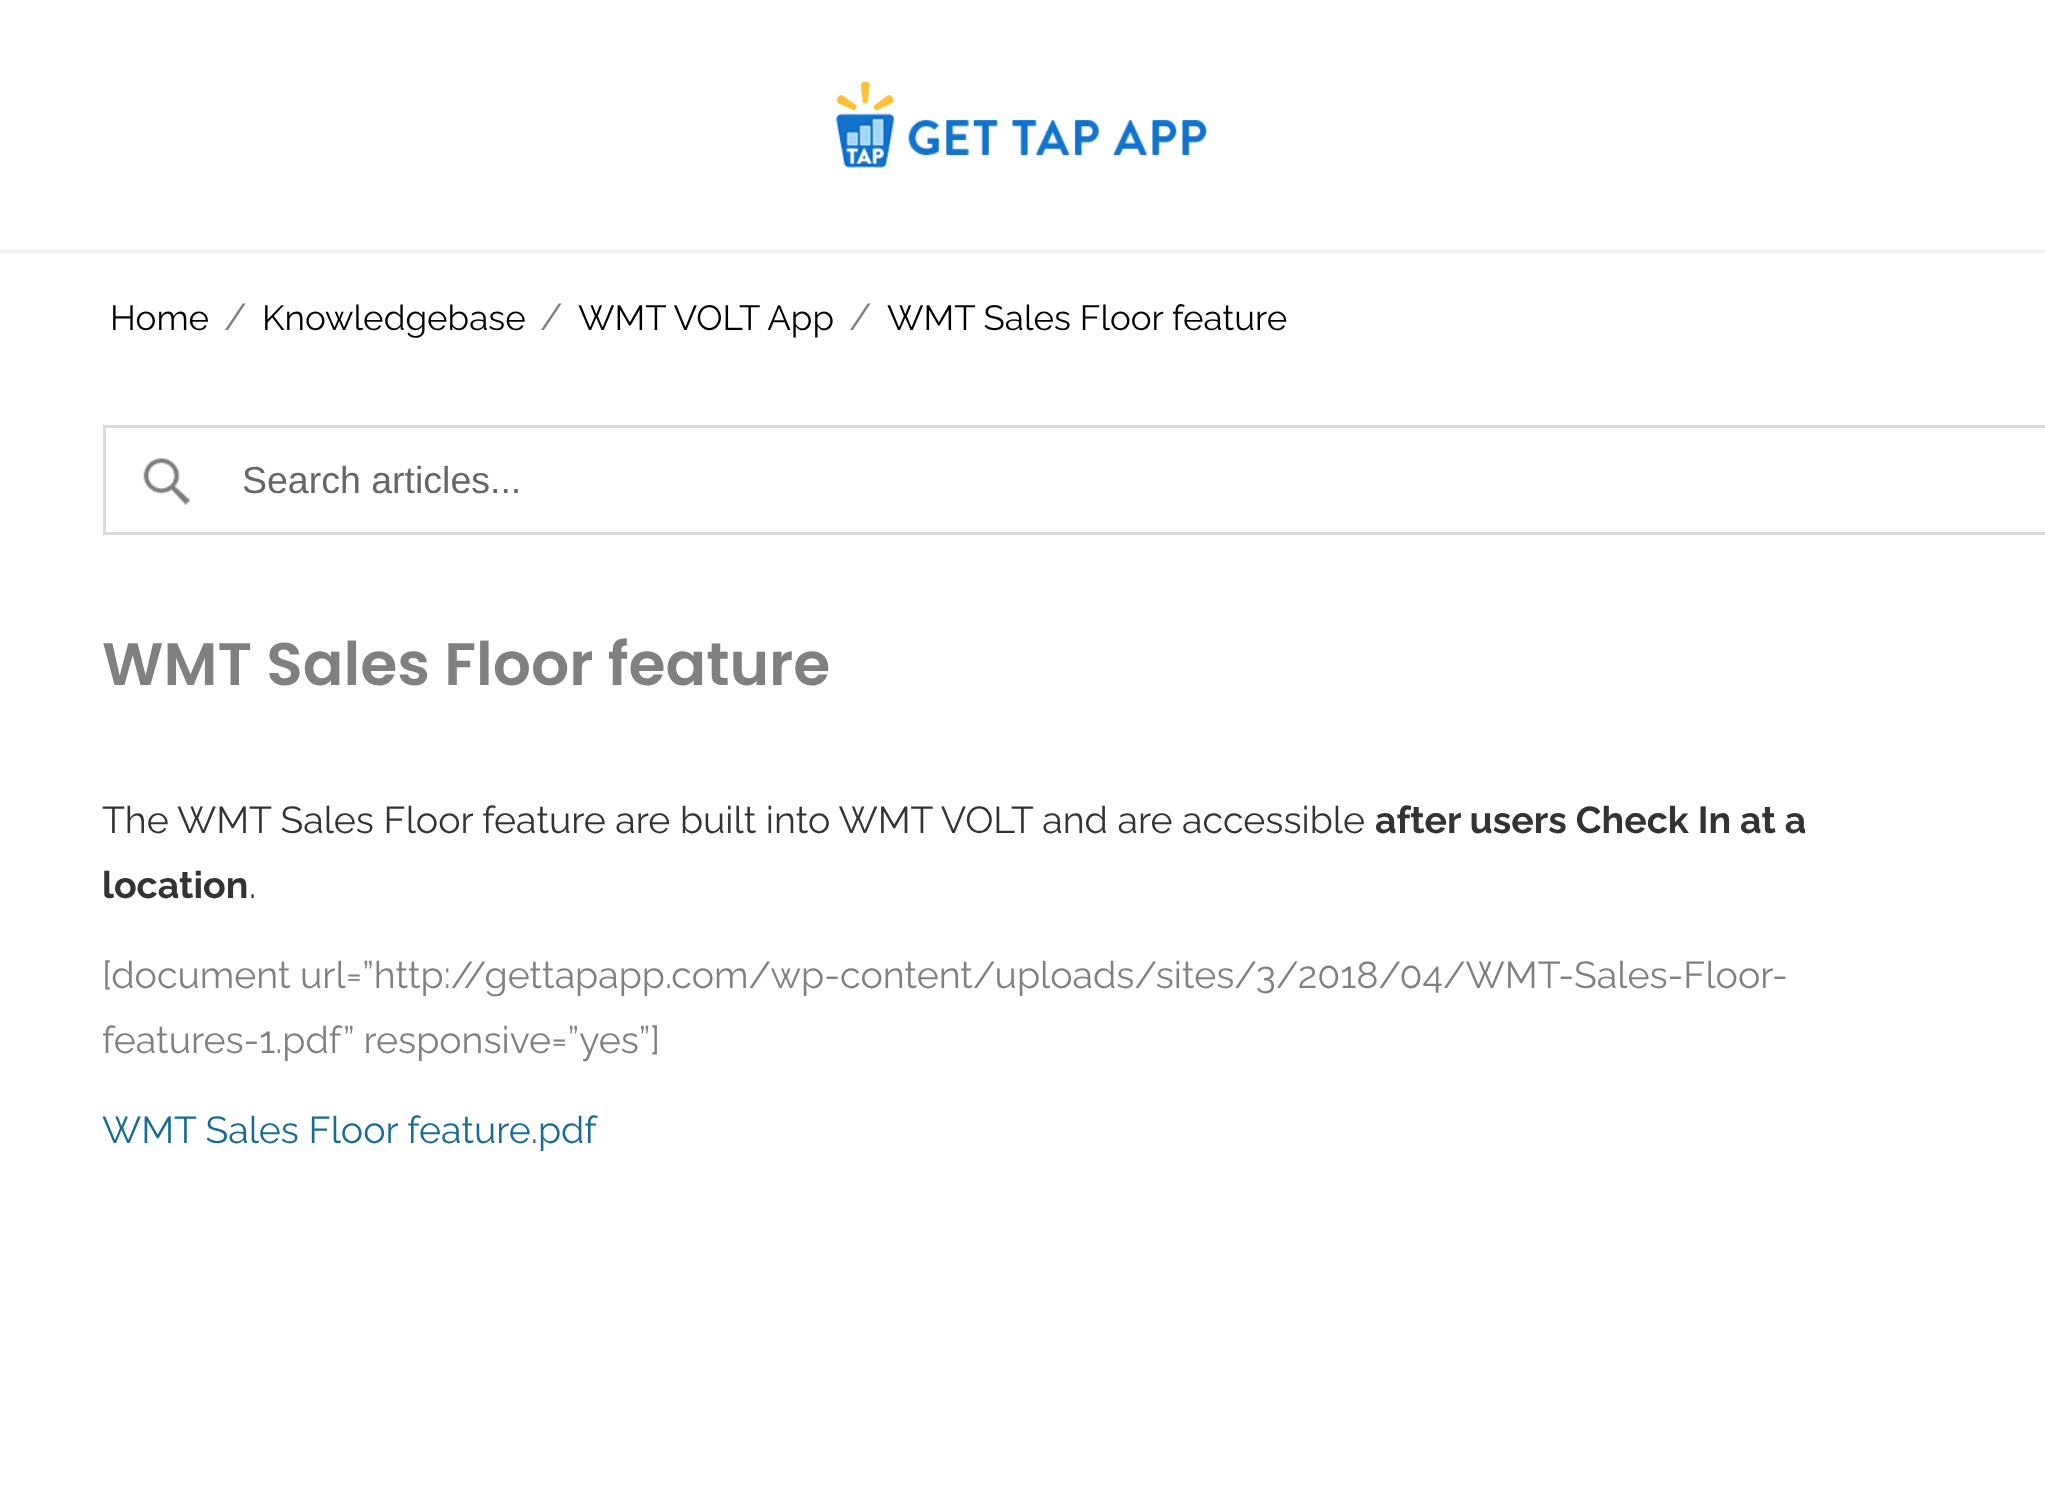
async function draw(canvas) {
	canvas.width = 2045;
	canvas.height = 1501;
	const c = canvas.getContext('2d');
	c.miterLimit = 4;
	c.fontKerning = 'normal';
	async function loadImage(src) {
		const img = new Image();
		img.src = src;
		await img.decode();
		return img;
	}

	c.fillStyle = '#fff';
	c.fillRect(0, 0, 2045, 1501);
	c.fillStyle = '#f2f2f2';
	c.fillRect(0, 250, 2045, 3);
	c.drawImage(await loadImage('img1.png'), 836, 81, 371, 87);
	c.font = '35px Raleway';
	c.fillStyle = '#000';
	c.fillText('Home', 110, 330);
	c.font = '37.5px Raleway';
	c.fillStyle = '#808080';
	c.fillText('/', 224, 330);
	c.font = '35px Raleway';
	c.fillStyle = '#000';
	c.fillText('Knowledgebase', 262, 330);
	c.font = '37.5px Raleway';
	c.fillStyle = '#808080';
	c.fillText('/', 540, 330);
	c.font = '35px Raleway';
	c.fillStyle = '#000';
	c.fillText('WMT VOLT App', 578, 330);
	c.font = '37.5px Raleway';
	c.fillStyle = '#808080';
	c.fillText('/', 849, 330);
	c.font = '35px Raleway';
	c.fillStyle = '#000';
	c.fillText('WMT Sales Floor feature', 887, 330);
	c.drawImage(await loadImage('img2.png'), 143, 458, 47, 47);
	c.strokeStyle = '#dbdbdb';
	c.lineWidth = 3;
	c.strokeRect(104.5, 426.5, 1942, 107);
	c.font = '37.5px Liberation Sans';
	c.fillStyle = '#666';
	c.fillText('Search articles...', 242, 493);
	c.font = '600 60px Poppins';
	c.fillStyle = '#808080';
	c.fillText('WMT Sales Floor feature', 102, 685);
	c.font = '37.5px Raleway';
	c.fillStyle = '#333';
	c.fillText('The WMT Sales Floor feature are built into WMT VOLT and are accessible', 102, 833);
	c.font = 'bold 37.5px Raleway';
	c.fillText('after users Check In at a', 1375, 833);
	c.fillText('location', 102, 898);
	c.font = '37.5px Raleway';
	c.fillText('.', 249, 898);
	c.fillStyle = '#808080';
	c.fillText('[document url=”http://gettapapp.com/wp-content/uploads/sites/3/2018/04/WMT-Sales-Floor-', 102, 988);
	c.fillText('features-1.pdf” responsive=”yes”]', 102, 1053);
	c.fillStyle = '#166c94';
	c.fillText('WMT Sales Floor feature.pdf', 102, 1143);
}

draw(document.querySelector('canvas'));
